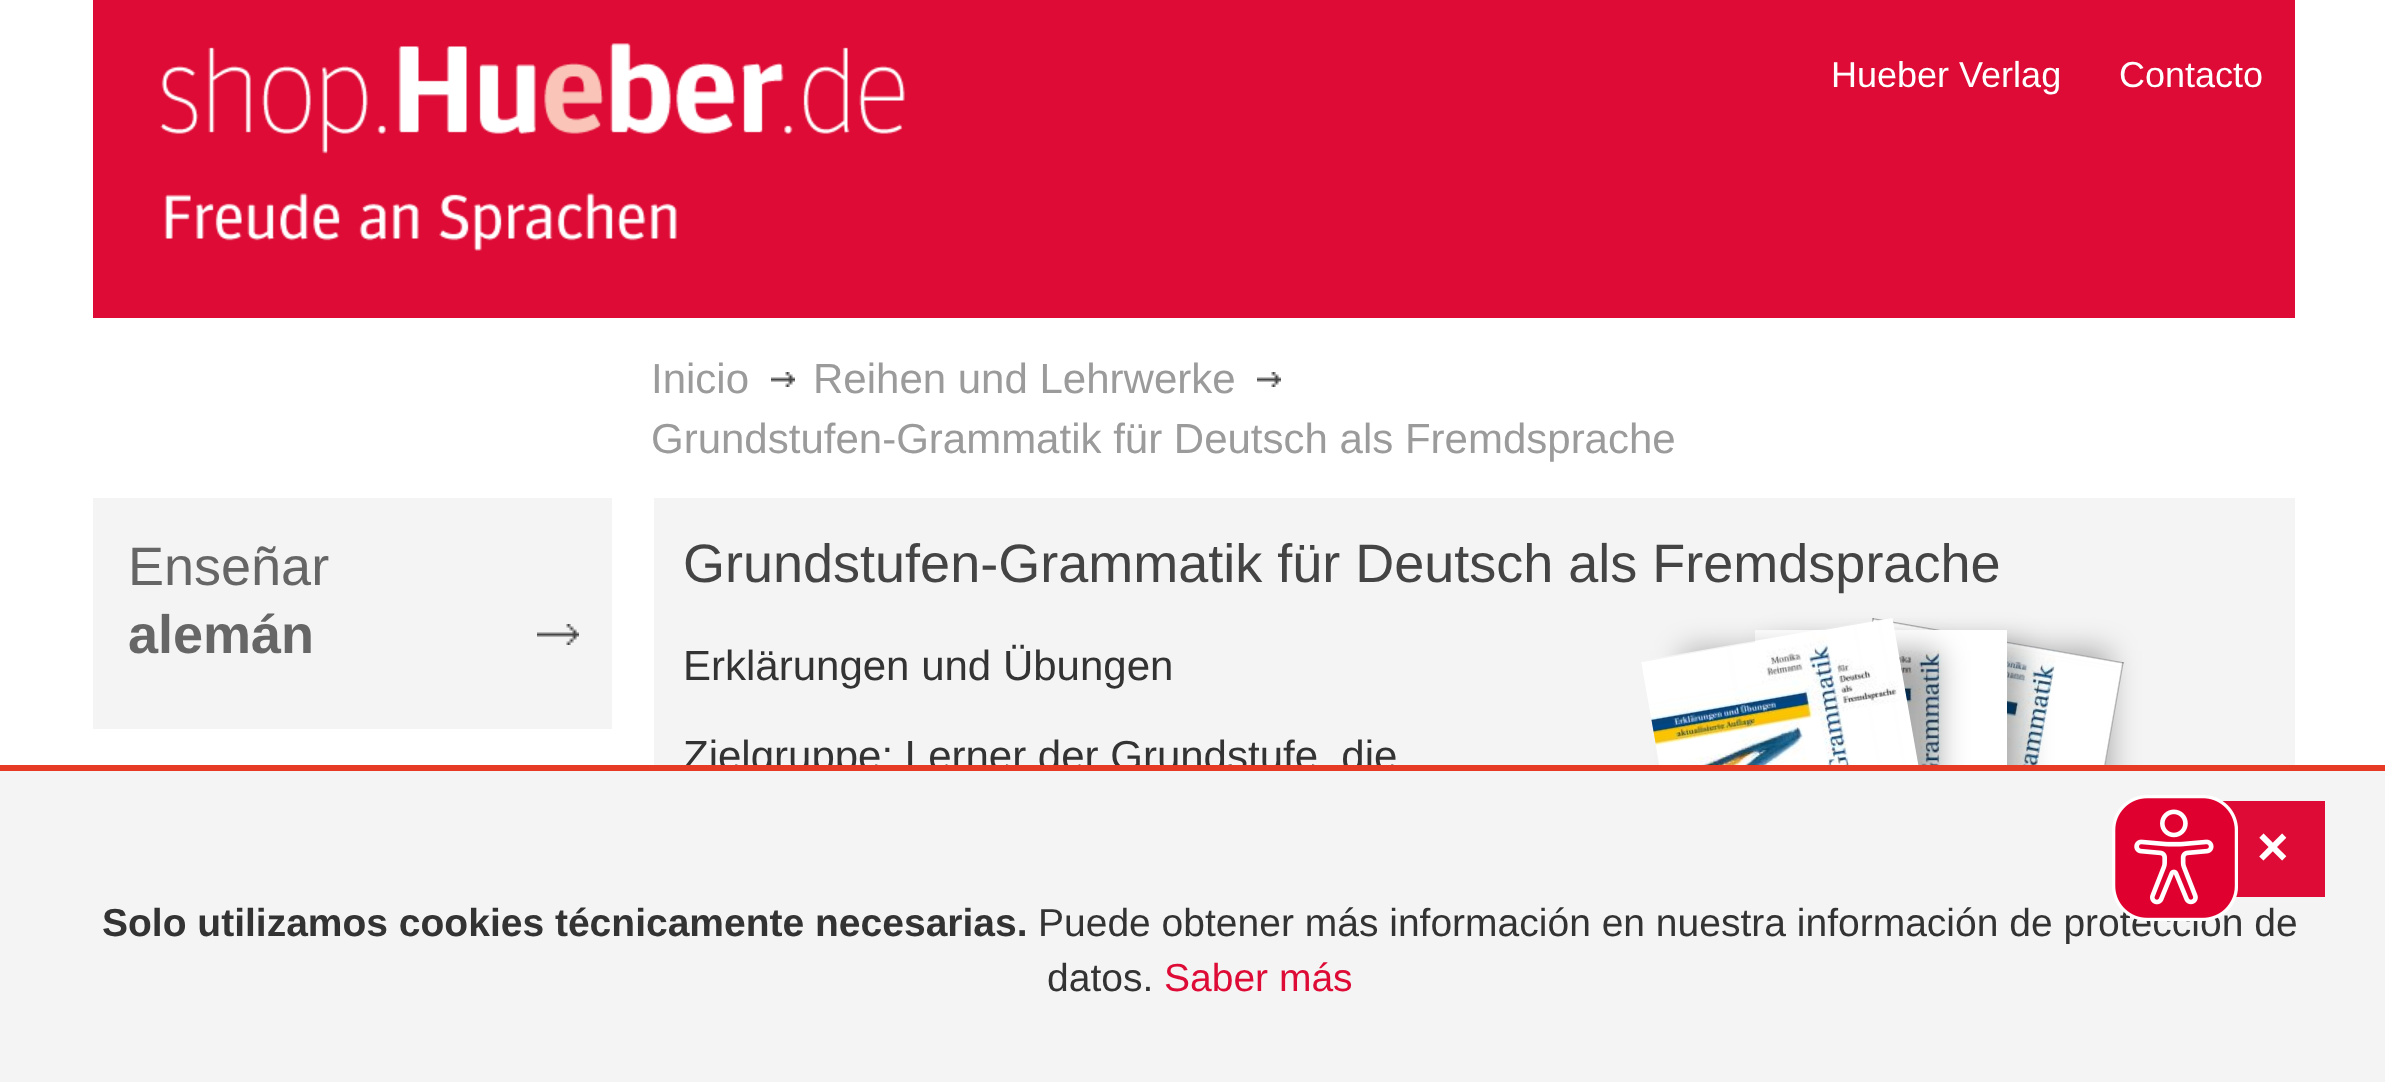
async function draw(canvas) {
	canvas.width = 2385;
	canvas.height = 1082;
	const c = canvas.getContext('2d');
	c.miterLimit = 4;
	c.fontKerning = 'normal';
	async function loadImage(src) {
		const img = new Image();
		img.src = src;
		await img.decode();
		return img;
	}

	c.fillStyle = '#fff';
	c.fillRect(0, 0, 2385, 1082);
	c.fillStyle = '#dd0b35';
	c.fillRect(93, 0, 2202, 318);
	c.drawImage(await loadImage('img1.png'), 160, 43, 745, 208);
	c.font = '36px Liberation Sans';
	c.fillStyle = '#fff';
	c.fillText('Hueber Verlag', 1831, 87);
	c.fillText('Contacto', 2119, 87);
	c.font = '42px Liberation Sans';
	c.fillStyle = '#9b9b9b';
	c.fillText('Inicio', 651, 393);
	c.drawImage(await loadImage('img2.png'), 771, 372, 24, 15);
	c.fillText('Reihen und Lehrwerke', 813, 393);
	c.drawImage(await loadImage('img2.png'), 1257, 372, 24, 15);
	c.fillText('Grundstufen-Grammatik für Deutsch als Fremdsprache', 651, 453);
	c.fillStyle = '#f4f4f4';
	c.fillRect(93, 498, 519, 231);
	c.drawImage(await loadImage('img3.png'), 537, 624, 42, 21);
	c.font = '54px Liberation Sans';
	c.fillStyle = '#666';
	c.fillText('Enseñar', 128, 585);
	c.font = 'bold 54px Liberation Sans';
	c.fillText('alemán', 128, 653);
	c.fillStyle = '#f4f4f4';
	c.fillRect(654, 498, 1641, 267);
	c.font = '54px Liberation Sans';
	c.fillStyle = '#444';
	c.fillText('Grundstufen-Grammatik für Deutsch als Fremdsprache', 683, 582);
	c.fillStyle = '#00000054';
	c.filter = 'blur(15px)';
	c.beginPath();
	c.rect(1854, 651, 255, 333);
	c.fill();
	c.filter = 'none';
	c.drawImage(await loadImage('img6.png'), 1871, 618, 253, 147);
	c.filter = 'blur(15px)';
	c.beginPath();
	c.rect(1770, 645, 252, 333);
	c.fill();
	c.filter = 'none';
	c.drawImage(await loadImage('img4.png'), 1755, 630, 252, 135);
	c.save();
	c.beginPath();
	c.moveTo(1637, 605);
	c.lineTo(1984, 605);
	c.lineTo(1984, 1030);
	c.lineTo(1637, 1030);
	c.closePath();
	c.moveTo(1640, 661);
	c.lineTo(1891, 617);
	c.lineTo(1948.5, 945);
	c.lineTo(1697.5, 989);
	c.closePath();
	c.clip('evenodd');
	c.filter = 'blur(15px)';
	c.beginPath();
	c.rect(1683, 651, 255, 333);
	c.fill();
	c.filter = 'none';
	c.restore();
	c.drawImage(await loadImage('img5.png'), 1641, 618, 278, 147);
	c.font = '42px Liberation Sans';
	c.fillStyle = '#333';
	c.fillText('Erklärungen und Übungen', 683, 680);
	c.fillText('Zielgruppe: Lerner der Grundstufe, die', 683, 770);
	c.fillStyle = '#f4f4f4';
	c.fillRect(0, 771, 2385, 311);
	c.fillStyle = '#dd0b35';
	c.fillRect(2222, 801, 103, 96);
	c.font = '39px Liberation Sans';
	c.fillStyle = '#333';
	c.fillText('Puede obtener más información en nuestra información de protección de', 1038, 936);
	c.drawImage(await loadImage('img7.png'), 2112, 795, 126, 126);
	c.fillStyle = '#e63a24';
	c.fillRect(0, 765, 2385, 6);
	c.font = 'bold 54px Liberation Sans';
	c.fillStyle = '#fff';
	c.fillText('×', 2257, 865);
	c.font = 'bold 39px Liberation Sans';
	c.fillStyle = '#333';
	c.fillText('Solo utilizamos cookies técnicamente necesarias.', 102, 936);
	c.font = '39px Liberation Sans';
	c.fillText('datos.', 1047, 991);
	c.fillStyle = '#dd0b35';
	c.fillText('Saber más', 1164, 991);
}

draw(document.querySelector('canvas'));
